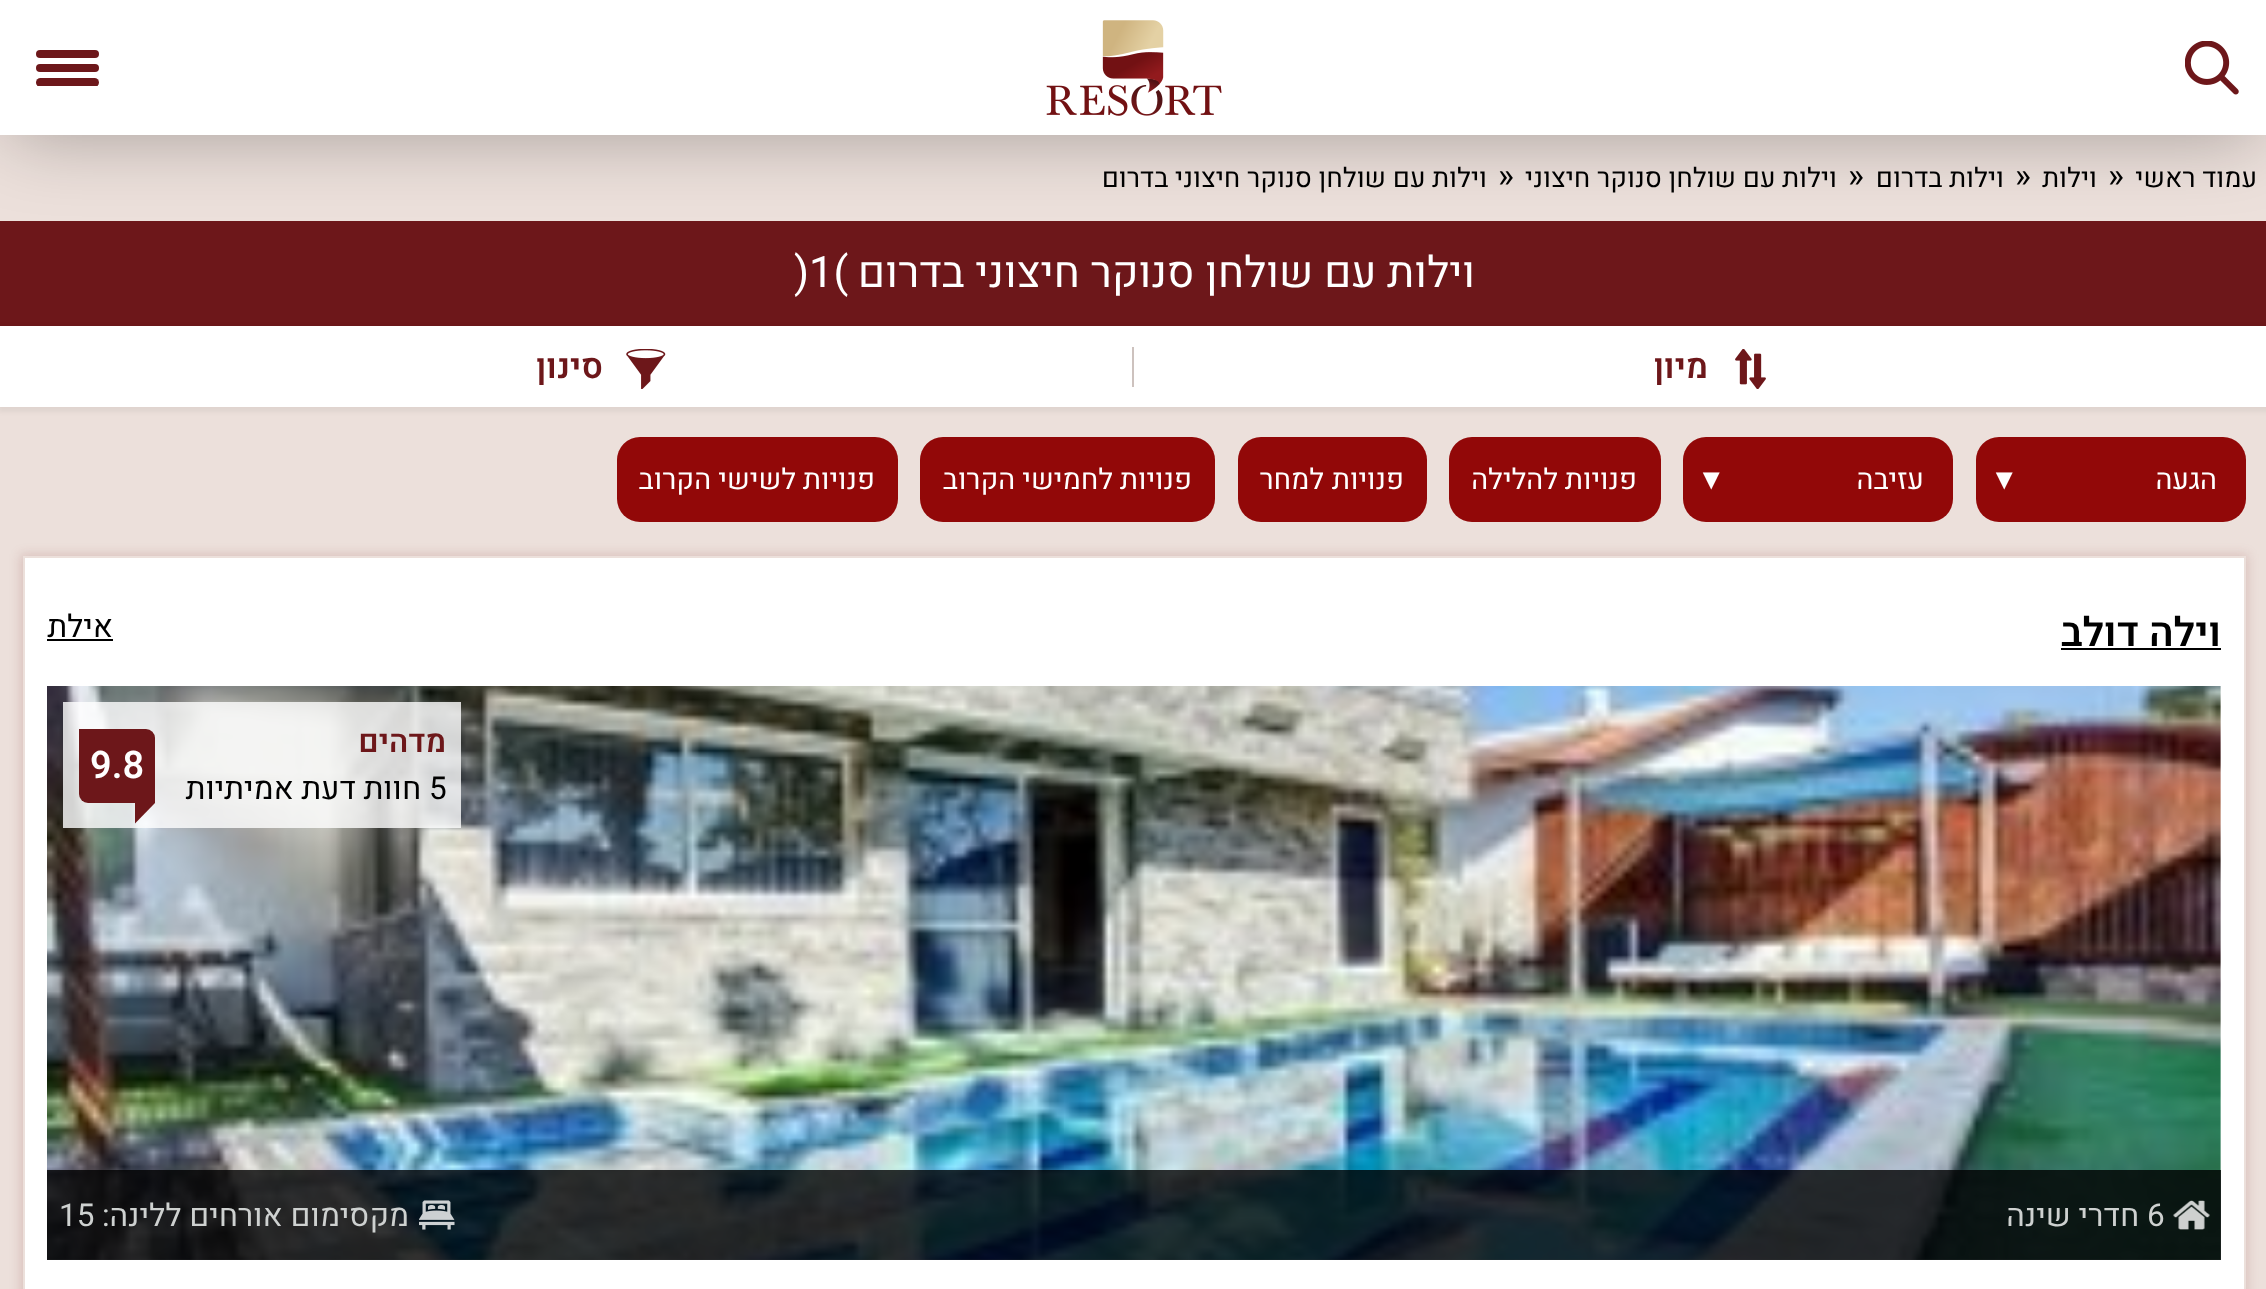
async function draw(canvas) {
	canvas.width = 2266;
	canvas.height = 1289;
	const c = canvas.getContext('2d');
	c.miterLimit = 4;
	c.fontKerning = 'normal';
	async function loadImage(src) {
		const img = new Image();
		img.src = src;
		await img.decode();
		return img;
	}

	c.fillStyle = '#ece0db';
	c.fillRect(0, 0, 2266, 1289);
	c.fillStyle = '#6d171a';
	c.fillRect(0, 221, 2266, 105);
	c.fillStyle = '#0000004d';
	c.filter = 'blur(37px)';
	c.beginPath();
	c.rect(11, 23, 2246, 112);
	c.fill();
	c.filter = 'none';
	c.fillStyle = '#fff';
	c.fillRect(0, 0, 2266, 135);
	c.drawImage(await loadImage('img1.png'), 2185, 41, 54, 54);
	c.drawImage(await loadImage('img2.png'), 1046, 20, 176, 96);
	c.fillStyle = '#6d171a';
	c.beginPath();
	c.roundRect(36, 50, 63, 8, 4);
	c.fill();
	c.beginPath();
	c.roundRect(36, 64, 63, 8, 4);
	c.fill();
	c.save();
	c.beginPath();
	c.rect(36, 50, 63, 36);
	c.clip();
	c.beginPath();
	c.roundRect(36, 78, 63, 9, 4.5);
	c.fill();
	c.restore();
	c.direction = 'rtl';
	c.font = '27px Heebo';
	c.fillStyle = '#000';
	c.fillText('עמוד ראשי', 2257, 187);
	c.direction = 'ltr';
	c.font = '34px Heebo';
	c.fillText('»', 2108, 187);
	c.direction = 'rtl';
	c.font = '27px Heebo';
	c.fillText('וילות', 2097, 187);
	c.direction = 'ltr';
	c.font = '34px Heebo';
	c.fillText('»', 2015, 187);
	c.direction = 'rtl';
	c.font = '27px Heebo';
	c.fillText('וילות בדרום', 2004, 187);
	c.direction = 'ltr';
	c.font = '34px Heebo';
	c.fillText('»', 1848, 187);
	c.direction = 'rtl';
	c.font = '27px Heebo';
	c.fillText('וילות עם שולחן סנוקר חיצוני', 1837, 187);
	c.direction = 'ltr';
	c.font = '34px Heebo';
	c.fillText('»', 1498, 187);
	c.direction = 'rtl';
	c.font = '27px Heebo';
	c.fillText('וילות עם שולחן סנוקר חיצוני בדרום', 1487, 187);
	c.font = '43.25px Heebo';
	c.fillStyle = '#fff';
	c.fillText('וילות עם שולחן סנוקר חיצוני בדרום', 1475, 287);
	c.direction = 'ltr';
	c.fillText(')1(', 794, 287);
	c.fillStyle = '#0000000d';
	c.filter = 'blur(2px)';
	c.beginPath();
	c.rect(-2, 326, 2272, 86);
	c.fill();
	c.filter = 'none';
	c.fillStyle = '#fff';
	c.fillRect(0, 326, 2266, 81);
	c.drawImage(await loadImage('img3.png'), 1735, 349, 31, 40);
	c.direction = 'rtl';
	c.font = '600 34px Heebo';
	c.fillStyle = '#6d171a';
	c.fillText('מיון', 1708, 378);
	c.fillStyle = '#cdc2be';
	c.fillRect(1132, 347, 2, 40);
	c.drawImage(await loadImage('img4.png'), 626, 349, 40, 40);
	c.fillStyle = '#6d171a';
	c.fillText('סינון', 603, 378);
	c.fillStyle = '#920808';
	c.beginPath();
	c.roundRect(1976, 437, 270, 85, 23);
	c.fill();
	c.font = '28.75px Heebo';
	c.fillStyle = '#fff';
	c.fillText('הגעה', 2217, 489);
	c.direction = 'ltr';
	c.font = '28.75px Liberation Sans';
	c.fillText('▼', 1990, 489);
	c.fillStyle = '#920808';
	c.beginPath();
	c.roundRect(1683, 437, 270, 85, 23);
	c.fill();
	c.direction = 'rtl';
	c.font = '28.75px Heebo';
	c.fillStyle = '#fff';
	c.fillText('עזיבה', 1924, 489);
	c.direction = 'ltr';
	c.font = '28.75px Liberation Sans';
	c.fillText('▼', 1697, 489);
	c.fillStyle = '#920808';
	c.beginPath();
	c.roundRect(1449, 437, 212, 85, 23);
	c.fill();
	c.direction = 'rtl';
	c.font = '28.75px Heebo';
	c.fillStyle = '#fff';
	c.fillText('פנויות', 1637, 489);
	c.fillText('להלילה', 1558, 489);
	c.fillStyle = '#920808';
	c.beginPath();
	c.roundRect(1238, 437, 189, 85, 23);
	c.fill();
	c.fillStyle = '#fff';
	c.fillText('פנויות', 1404, 489);
	c.fillText('למחר', 1324, 489);
	c.fillStyle = '#920808';
	c.beginPath();
	c.roundRect(920, 437, 295, 85, 23);
	c.fill();
	c.fillStyle = '#fff';
	c.fillText('פנויות', 1192, 489);
	c.fillText('לחמישי הקרוב', 1113, 489);
	c.fillStyle = '#920808';
	c.beginPath();
	c.roundRect(617, 437, 281, 85, 23);
	c.fill();
	c.fillStyle = '#fff';
	c.fillText('פנויות', 875, 489);
	c.fillText('לשישי הקרוב', 796, 489);
	c.fillStyle = '#76121226';
	c.filter = 'blur(5.5px)';
	c.beginPath();
	c.rect(20, 554, 2228, 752);
	c.fill();
	c.filter = 'none';
	c.fillStyle = '#fff';
	c.beginPath();
	c.rect(24, 557, 2221, 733);
	c.fill();
	c.strokeStyle = '#ece0db';
	c.lineWidth = 2;
	c.stroke();
	c.font = '600 40.5px Heebo';
	c.fillStyle = '#000';
	c.fillText('וילה דולב', 2221, 646);
	c.fillRect(2061, 648, 160, 2);
	c.font = '31.5px Heebo';
	c.fillText('אילת', 113, 637);
	c.fillRect(47, 639, 66, 2);
	c.drawImage(await loadImage('img5.png'), 47, 686, 2174, 574);
	c.fillStyle = '#ffffffcc';
	c.fillRect(63, 702, 398, 126);
	c.font = '600 31.5px Heebo';
	c.fillStyle = '#6d171a';
	c.fillText('מדהים', 446, 752);
	c.direction = 'ltr';
	c.font = '31.5px Heebo';
	c.fillStyle = '#000';
	c.fillText('5', 429, 799);
	c.direction = 'rtl';
	c.fillText('חוות דעת אמיתיות', 421, 799);
	c.fillStyle = '#6d171a';
	c.beginPath();
	c.roundRect(79, 729, 76, 74, [0, 9, 0, 9]);
	c.fill();
	c.direction = 'ltr';
	c.font = '600 38px Heebo';
	c.fillStyle = '#fff';
	c.fillText('9.8', 90, 778);
	c.fillStyle = '#6d171a';
	c.beginPath();
	c.moveTo(135, 803);
	c.lineTo(155, 803);
	c.lineTo(135, 823.5);
	c.closePath();
	c.fill();
	c.fillStyle = '#000000cc';
	c.fillRect(47, 1170, 2174, 90);
	c.drawImage(await loadImage('img6.png'), 2173, 1200, 37, 30);
	c.font = '31.5px Heebo';
	c.fillStyle = '#ced1d0';
	c.fillText('6', 2147, 1226);
	c.direction = 'rtl';
	c.fillText('חדרי שינה', 2139, 1226);
	c.drawImage(await loadImage('img7.png'), 419, 1200, 36, 30);
	c.fillText('מקסימום אורחים ללינה:', 409, 1226);
	c.direction = 'ltr';
	c.fillText('15', 59, 1226);
}

draw(document.querySelector('canvas'));
